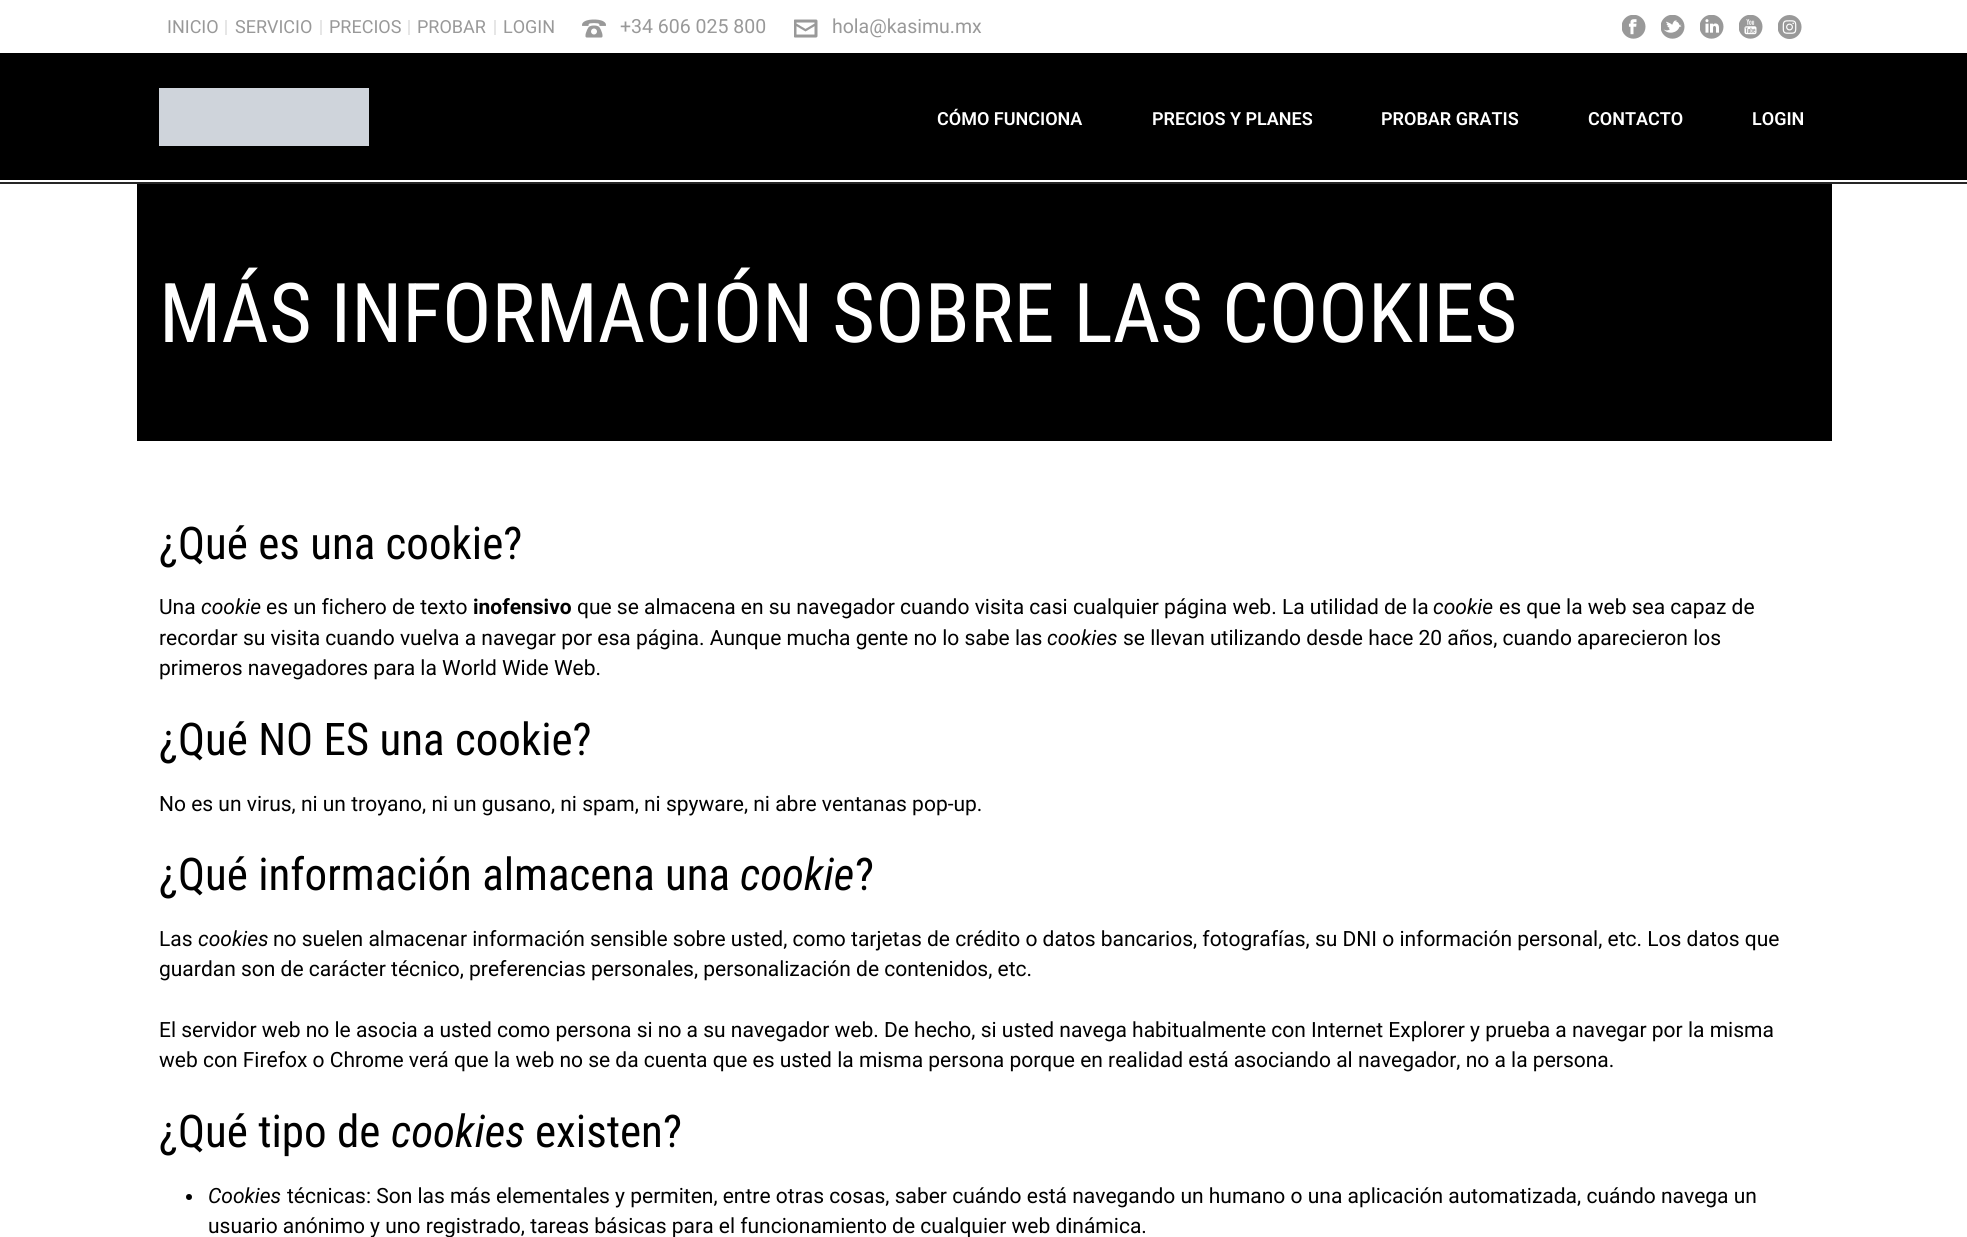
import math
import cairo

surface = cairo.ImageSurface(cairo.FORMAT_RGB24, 1967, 1237)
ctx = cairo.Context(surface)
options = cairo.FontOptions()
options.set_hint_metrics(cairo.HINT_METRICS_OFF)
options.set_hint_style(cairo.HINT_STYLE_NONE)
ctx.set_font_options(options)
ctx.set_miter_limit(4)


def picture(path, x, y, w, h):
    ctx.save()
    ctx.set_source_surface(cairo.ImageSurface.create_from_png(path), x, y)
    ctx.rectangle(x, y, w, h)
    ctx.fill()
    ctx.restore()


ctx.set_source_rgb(1, 1, 1)
ctx.paint()
ctx.set_source_rgb(0.149, 0.149, 0.149)
ctx.rectangle(0, 182, 1967, 2)
ctx.fill()
ctx.set_source_rgb(0.902, 0.902, 0.902)
ctx.rectangle(225, 20, 2, 15)
ctx.fill()
ctx.select_font_face("Roboto")
ctx.set_font_size(18)
ctx.set_source_rgb(0.6, 0.6, 0.6)
ctx.move_to(167, 33)
ctx.show_text("INICIO")
ctx.set_source_rgb(0.902, 0.902, 0.902)
ctx.rectangle(320, 20, 2, 15)
ctx.fill()
ctx.set_source_rgb(0.6, 0.6, 0.6)
ctx.move_to(235, 33)
ctx.show_text("SERVICIO")
ctx.set_source_rgb(0.902, 0.902, 0.902)
ctx.rectangle(408, 20, 2, 15)
ctx.fill()
ctx.set_source_rgb(0.6, 0.6, 0.6)
ctx.move_to(329, 33)
ctx.show_text("PRECIOS")
ctx.set_source_rgb(0.902, 0.902, 0.902)
ctx.rectangle(494, 20, 2, 15)
ctx.fill()
ctx.set_source_rgb(0.6, 0.6, 0.6)
ctx.move_to(417, 33)
ctx.show_text("PROBAR")
ctx.move_to(503, 33)
ctx.show_text("LOGIN")
picture("img1.png", 582, 19, 24, 19)
ctx.set_font_size(19.5)
ctx.move_to(620, 33)
ctx.show_text("+34 606 025 800")
picture("img2.png", 794, 19, 24, 19)
ctx.move_to(832, 33)
ctx.show_text("hola@kasimu.mx")
picture("img3.png", 1622, 15, 24, 24)
picture("img4.png", 1661, 15, 24, 24)
picture("img5.png", 1700, 15, 24, 24)
picture("img6.png", 1739, 15, 24, 24)
picture("img7.png", 1778, 15, 24, 24)
ctx.set_source_rgb(0, 0, 0)
ctx.rectangle(0, 53, 1967, 127)
ctx.fill()
ctx.set_source_rgb(0.812, 0.831, 0.859)
ctx.rectangle(159, 88, 210, 58)
ctx.fill()
ctx.select_font_face("Roboto SemiBold")
ctx.set_font_size(18)
ctx.set_source_rgb(1, 1, 1)
ctx.move_to(937, 125)
ctx.show_text("CÓMO FUNCIONA")
ctx.move_to(1152, 125)
ctx.show_text("PRECIOS Y PLANES")
ctx.move_to(1381, 125)
ctx.show_text("PROBAR GRATIS")
ctx.move_to(1588, 125)
ctx.show_text("CONTACTO")
ctx.move_to(1752, 125)
ctx.show_text("LOGIN")
ctx.set_source_rgb(0, 0, 0)
ctx.rectangle(137, 184, 1695, 257)
ctx.fill()
ctx.select_font_face("Roboto Condensed")
ctx.set_font_size(82.5)
ctx.set_source_rgb(1, 1, 1)
ctx.move_to(159, 342)
ctx.show_text("MÁS INFORMACIÓN SOBRE LAS COOKIES")
ctx.set_font_size(45)
ctx.set_source_rgb(0, 0, 0)
ctx.move_to(159, 559)
ctx.show_text("¿Qué es una cookie?")
ctx.select_font_face("Roboto")
ctx.set_font_size(21)
ctx.move_to(159, 614)
ctx.show_text("Una")
ctx.select_font_face("Roboto", cairo.FONT_SLANT_ITALIC)
ctx.move_to(201, 614)
ctx.show_text("cookie")
ctx.select_font_face("Roboto")
ctx.move_to(266, 614)
ctx.show_text("es un fichero de texto")
ctx.select_font_face("Roboto", cairo.FONT_SLANT_NORMAL, cairo.FONT_WEIGHT_BOLD)
ctx.move_to(473, 614)
ctx.show_text("inofensivo")
ctx.select_font_face("Roboto")
ctx.move_to(577, 614)
ctx.show_text("que se almacena en su navegador cuando visita casi cualquier página web. La utilidad de la")
ctx.select_font_face("Roboto", cairo.FONT_SLANT_ITALIC)
ctx.move_to(1433, 614)
ctx.show_text("cookie")
ctx.select_font_face("Roboto")
ctx.move_to(1499, 614)
ctx.show_text("es que la web sea capaz de")
ctx.move_to(159, 645)
ctx.show_text("recordar su visita cuando vuelva a navegar por esa página. Aunque mucha gente no lo sabe las")
ctx.select_font_face("Roboto", cairo.FONT_SLANT_ITALIC)
ctx.move_to(1047, 645)
ctx.show_text("cookies")
ctx.select_font_face("Roboto")
ctx.move_to(1123, 645)
ctx.show_text("se llevan utilizando desde hace 20 años, cuando aparecieron los")
ctx.move_to(159, 675)
ctx.show_text("primeros navegadores para la World Wide Web.")
ctx.select_font_face("Roboto Condensed")
ctx.set_font_size(45)
ctx.move_to(159, 755)
ctx.show_text("¿Qué NO ES una cookie?")
ctx.select_font_face("Roboto")
ctx.set_font_size(21)
ctx.move_to(159, 811)
ctx.show_text("No es un virus, ni un troyano, ni un gusano, ni spam, ni spyware, ni abre ventanas pop-up.")
ctx.select_font_face("Roboto Condensed")
ctx.set_font_size(45)
ctx.move_to(159, 890)
ctx.show_text("¿Qué información almacena una")
ctx.select_font_face("Roboto Condensed", cairo.FONT_SLANT_ITALIC)
ctx.move_to(740, 890)
ctx.show_text("cookie")
ctx.select_font_face("Roboto Condensed")
ctx.move_to(855, 890)
ctx.show_text("?")
ctx.select_font_face("Roboto")
ctx.set_font_size(21)
ctx.move_to(159, 946)
ctx.show_text("Las")
ctx.select_font_face("Roboto", cairo.FONT_SLANT_ITALIC)
ctx.move_to(198, 946)
ctx.show_text("cookies")
ctx.select_font_face("Roboto")
ctx.move_to(273, 946)
ctx.show_text("no suelen almacenar información sensible sobre usted, como tarjetas de crédito o datos bancarios, fotografías, su DNI o información personal, etc. Los datos que")
ctx.move_to(159, 976)
ctx.show_text("guardan son de carácter técnico, preferencias personales, personalización de contenidos, etc.")
ctx.move_to(159, 1037)
ctx.show_text("El servidor web no le asocia a usted como persona si no a su navegador web. De hecho, si usted navega habitualmente con Internet Explorer y prueba a navegar por la misma")
ctx.move_to(159, 1067)
ctx.show_text("web con Firefox o Chrome verá que la web no se da cuenta que es usted la misma persona porque en realidad está asociando al navegador, no a la persona.")
ctx.select_font_face("Roboto Condensed")
ctx.set_font_size(45)
ctx.move_to(159, 1147)
ctx.show_text("¿Qué tipo de")
ctx.select_font_face("Roboto Condensed", cairo.FONT_SLANT_ITALIC)
ctx.move_to(391, 1147)
ctx.show_text("cookies")
ctx.select_font_face("Roboto Condensed")
ctx.move_to(535, 1147)
ctx.show_text("existen?")
ctx.new_path()
ctx.arc(189, 1197, 3, 0, 2 * math.pi)
ctx.fill()
ctx.select_font_face("Roboto", cairo.FONT_SLANT_ITALIC)
ctx.set_font_size(21)
ctx.move_to(208, 1203)
ctx.show_text("Cookies")
ctx.select_font_face("Roboto")
ctx.move_to(287, 1203)
ctx.show_text("técnicas: Son las más elementales y permiten, entre otras cosas, saber cuándo está navegando un humano o una aplicación automatizada, cuándo navega un")
ctx.move_to(208, 1233)
ctx.show_text("usuario anónimo y uno registrado, tareas básicas para el funcionamiento de cualquier web dinámica.")
surface.write_to_png("page.png")
